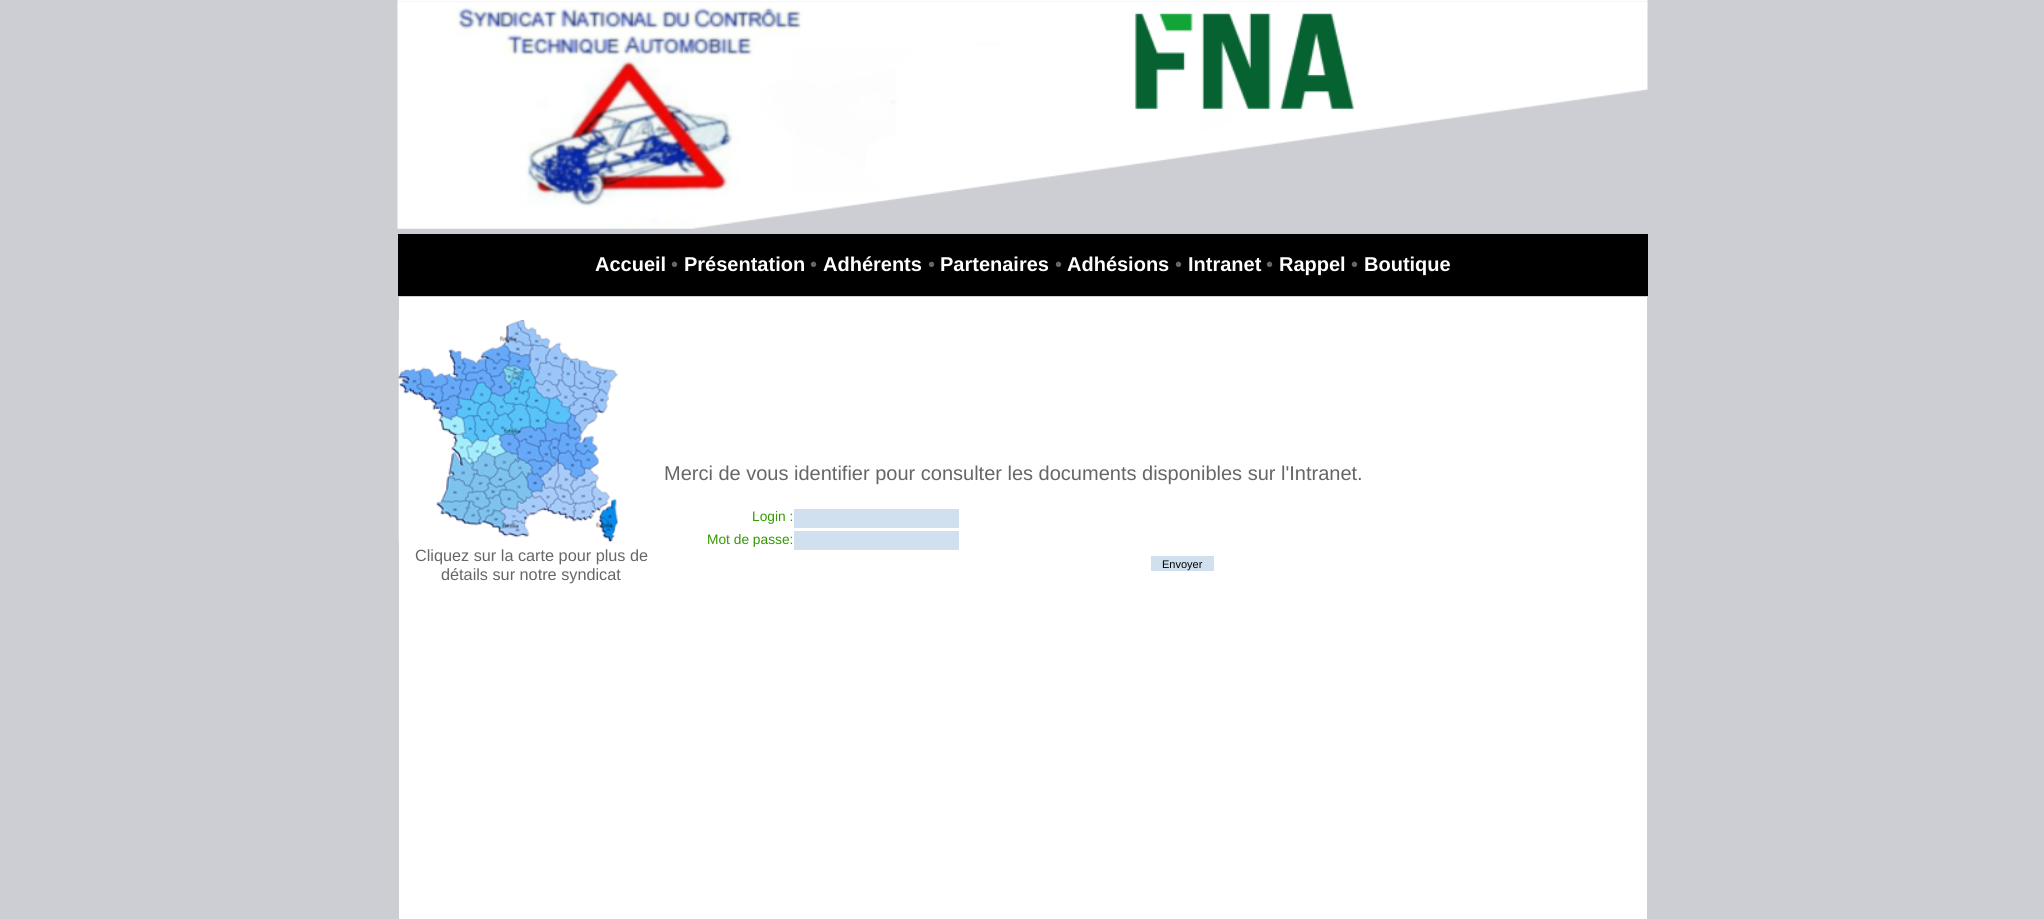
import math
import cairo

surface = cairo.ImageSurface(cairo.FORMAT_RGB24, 2044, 919)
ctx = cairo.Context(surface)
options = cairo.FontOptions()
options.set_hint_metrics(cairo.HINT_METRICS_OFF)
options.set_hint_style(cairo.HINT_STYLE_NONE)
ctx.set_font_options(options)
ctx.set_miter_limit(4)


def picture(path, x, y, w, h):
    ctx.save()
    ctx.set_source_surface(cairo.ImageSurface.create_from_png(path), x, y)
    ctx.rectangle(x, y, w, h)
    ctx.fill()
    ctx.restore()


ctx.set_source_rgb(0.8, 0.808, 0.827)
ctx.paint()
picture("img1.png", 397, 0, 1251, 2)
picture("img2.png", 397, 1, 1251, 228)
ctx.set_source_rgb(0, 0, 0)
ctx.rectangle(398, 234, 1250, 62)
ctx.fill()
ctx.select_font_face("Liberation Sans", cairo.FONT_SLANT_NORMAL, cairo.FONT_WEIGHT_BOLD)
ctx.set_font_size(20)
ctx.set_source_rgb(1, 1, 1)
ctx.move_to(595, 271)
ctx.show_text("Accueil")
ctx.select_font_face("Liberation Sans")
ctx.set_source_rgb(0.4, 0.4, 0.4)
ctx.move_to(671, 271)
ctx.show_text("•")
ctx.select_font_face("Liberation Sans", cairo.FONT_SLANT_NORMAL, cairo.FONT_WEIGHT_BOLD)
ctx.set_source_rgb(1, 1, 1)
ctx.move_to(684, 271)
ctx.show_text("Présentation")
ctx.select_font_face("Liberation Sans")
ctx.set_source_rgb(0.4, 0.4, 0.4)
ctx.move_to(810, 271)
ctx.show_text("•")
ctx.select_font_face("Liberation Sans", cairo.FONT_SLANT_NORMAL, cairo.FONT_WEIGHT_BOLD)
ctx.set_source_rgb(1, 1, 1)
ctx.move_to(823, 271)
ctx.show_text("Adhérents")
ctx.select_font_face("Liberation Sans")
ctx.set_source_rgb(0.4, 0.4, 0.4)
ctx.move_to(928, 271)
ctx.show_text("•")
ctx.select_font_face("Liberation Sans", cairo.FONT_SLANT_NORMAL, cairo.FONT_WEIGHT_BOLD)
ctx.set_source_rgb(1, 1, 1)
ctx.move_to(940, 271)
ctx.show_text("Partenaires")
ctx.select_font_face("Liberation Sans")
ctx.set_source_rgb(0.4, 0.4, 0.4)
ctx.move_to(1055, 271)
ctx.show_text("•")
ctx.select_font_face("Liberation Sans", cairo.FONT_SLANT_NORMAL, cairo.FONT_WEIGHT_BOLD)
ctx.set_source_rgb(1, 1, 1)
ctx.move_to(1067, 271)
ctx.show_text("Adhésions")
ctx.select_font_face("Liberation Sans")
ctx.set_source_rgb(0.4, 0.4, 0.4)
ctx.move_to(1175, 271)
ctx.show_text("•")
ctx.select_font_face("Liberation Sans", cairo.FONT_SLANT_NORMAL, cairo.FONT_WEIGHT_BOLD)
ctx.set_source_rgb(1, 1, 1)
ctx.move_to(1188, 271)
ctx.show_text("Intranet")
ctx.select_font_face("Liberation Sans")
ctx.set_source_rgb(0.4, 0.4, 0.4)
ctx.move_to(1266, 271)
ctx.show_text("•")
ctx.select_font_face("Liberation Sans", cairo.FONT_SLANT_NORMAL, cairo.FONT_WEIGHT_BOLD)
ctx.set_source_rgb(1, 1, 1)
ctx.move_to(1279, 271)
ctx.show_text("Rappel")
ctx.select_font_face("Liberation Sans")
ctx.set_source_rgb(0.4, 0.4, 0.4)
ctx.move_to(1351, 271)
ctx.show_text("•")
ctx.select_font_face("Liberation Sans", cairo.FONT_SLANT_NORMAL, cairo.FONT_WEIGHT_BOLD)
ctx.set_source_rgb(1, 1, 1)
ctx.move_to(1364, 271)
ctx.show_text("Boutique")
ctx.rectangle(398.5, 296.5, 1249, 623)
ctx.fill_preserve()
ctx.set_source_rgb(0.808, 0.808, 0.808)
ctx.set_line_width(1)
ctx.stroke()
picture("img3.png", 398, 320, 220, 222)
ctx.select_font_face("Liberation Sans")
ctx.set_font_size(16.25)
ctx.set_source_rgb(0.4, 0.4, 0.4)
ctx.move_to(415, 561)
ctx.show_text("Cliquez sur la carte pour plus de")
ctx.move_to(441, 580)
ctx.show_text("détails sur notre syndicat")
ctx.set_font_size(20)
ctx.move_to(664, 480)
ctx.show_text("Merci de vous identifier pour consulter les documents disponibles sur l'Intranet.")
ctx.set_font_size(13.75)
ctx.set_source_rgb(0.2, 0.6, 0)
ctx.move_to(752, 521)
ctx.show_text("Login :")
ctx.set_source_rgb(0.82, 0.878, 0.937)
ctx.rectangle(794, 509, 165, 19)
ctx.fill()
ctx.set_source_rgb(0.2, 0.6, 0)
ctx.move_to(707, 544)
ctx.show_text("Mot de passe:")
ctx.set_source_rgb(0.82, 0.878, 0.937)
ctx.rectangle(794, 531, 165, 19)
ctx.fill()
ctx.rectangle(1151, 556, 63, 15)
ctx.fill()
ctx.set_font_size(11)
ctx.set_source_rgb(0, 0, 0)
ctx.move_to(1162, 568)
ctx.show_text("Envoyer")
surface.write_to_png("page.png")
